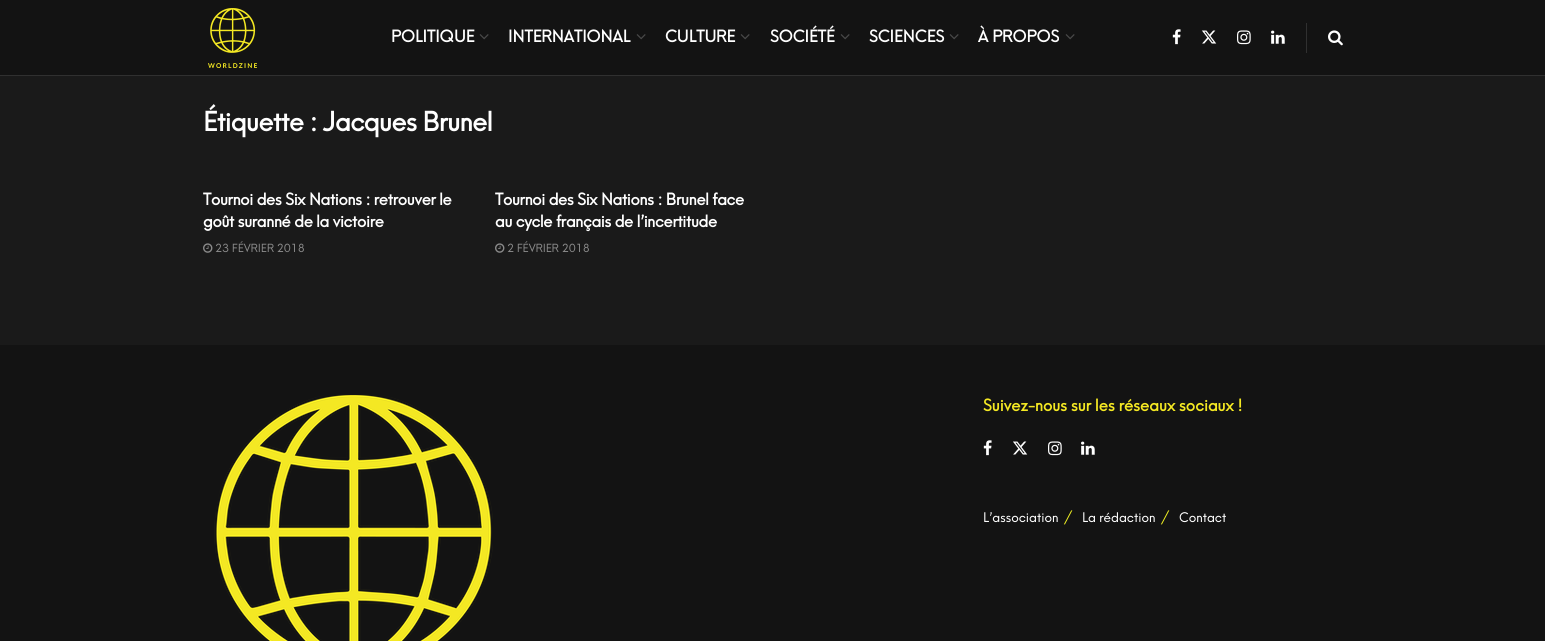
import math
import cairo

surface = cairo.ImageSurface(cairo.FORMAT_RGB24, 1545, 641)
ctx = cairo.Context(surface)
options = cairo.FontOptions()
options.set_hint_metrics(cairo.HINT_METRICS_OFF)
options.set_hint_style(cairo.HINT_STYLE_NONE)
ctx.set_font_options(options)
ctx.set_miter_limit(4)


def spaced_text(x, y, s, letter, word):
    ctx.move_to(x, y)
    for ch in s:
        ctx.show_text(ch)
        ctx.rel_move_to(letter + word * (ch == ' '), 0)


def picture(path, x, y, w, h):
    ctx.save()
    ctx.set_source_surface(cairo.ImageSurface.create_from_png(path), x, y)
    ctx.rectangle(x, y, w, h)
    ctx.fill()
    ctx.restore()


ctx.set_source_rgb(0.102, 0.102, 0.102)
ctx.paint()
ctx.set_source_rgb(0.075, 0.075, 0.075)
ctx.rectangle(0, 0, 1545, 75)
ctx.fill()
ctx.set_source_rgb(0.188, 0.188, 0.188)
ctx.rectangle(0, 75, 1545, 1)
ctx.fill()
picture("img1.png", 208, 8, 49, 60)
ctx.select_font_face("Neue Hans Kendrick", cairo.FONT_SLANT_NORMAL, cairo.FONT_WEIGHT_BOLD)
ctx.set_font_size(16)
ctx.set_source_rgb(1, 1, 1)
ctx.move_to(391, 42)
ctx.show_text("POLITIQUE")
picture("img2.png", 479, 34, 10, 6)
ctx.move_to(508, 42)
ctx.show_text("INTERNATIONAL")
picture("img2.png", 636, 34, 10, 6)
ctx.move_to(665, 42)
ctx.show_text("CULTURE")
picture("img2.png", 740, 34, 10, 6)
ctx.move_to(770, 42)
ctx.show_text("SOCIÉTÉ")
picture("img2.png", 840, 34, 10, 6)
ctx.move_to(869, 42)
ctx.show_text("SCIENCES")
picture("img2.png", 949, 34, 10, 6)
ctx.move_to(978, 42)
ctx.show_text("À PROPOS")
picture("img2.png", 1065, 34, 10, 6)
picture("img3.png", 1172, 29, 9, 16)
picture("img4.png", 1202, 30, 15, 14)
picture("img5.png", 1237, 30, 14, 15)
picture("img6.png", 1271, 30, 14, 14)
ctx.set_source_rgb(0.188, 0.188, 0.188)
ctx.rectangle(1306, 23, 1, 30)
ctx.fill()
picture("img7.png", 1328, 30, 15, 16)
ctx.set_font_size(26)
ctx.set_source_rgb(1, 1, 1)
spaced_text(203, 131, "Étiquette : Jacques Brunel", -0.5, 0)
ctx.set_font_size(16)
spaced_text(203, 205, "Tournoi des Six Nations : retrouver le", -0.3, 0)
spaced_text(203, 227, "goût suranné de la victoire", -0.3, 0)
picture("img8.png", 203, 243, 10, 10)
ctx.select_font_face("Neue Hans Kendrick")
ctx.set_font_size(11)
ctx.set_source_rgb(0.545, 0.545, 0.545)
ctx.move_to(215, 252)
ctx.show_text("23 FÉVRIER 2018")
ctx.select_font_face("Neue Hans Kendrick", cairo.FONT_SLANT_NORMAL, cairo.FONT_WEIGHT_BOLD)
ctx.set_font_size(16)
ctx.set_source_rgb(1, 1, 1)
spaced_text(495, 205, "Tournoi des Six Nations : Brunel face", -0.3, 0)
spaced_text(495, 227, "au cycle français de l’incertitude", -0.3, 0)
picture("img8.png", 495, 243, 10, 10)
ctx.select_font_face("Neue Hans Kendrick")
ctx.set_font_size(11)
ctx.set_source_rgb(0.545, 0.545, 0.545)
ctx.move_to(507, 252)
ctx.show_text("2 FÉVRIER 2018")
ctx.set_source_rgb(0.075, 0.075, 0.075)
ctx.rectangle(0, 345, 1545, 296)
ctx.fill()
picture("img9.png", 214, 395, 279, 246)
ctx.select_font_face("Neue Hans Kendrick", cairo.FONT_SLANT_NORMAL, cairo.FONT_WEIGHT_BOLD)
ctx.set_font_size(16)
ctx.set_source_rgb(0.957, 0.91, 0.137)
ctx.move_to(983, 411)
ctx.show_text("Suivez-nous sur les réseaux sociaux !")
picture("img3.png", 983, 440, 9, 16)
picture("img4.png", 1013, 441, 15, 14)
picture("img5.png", 1048, 441, 14, 15)
picture("img6.png", 1081, 441, 14, 14)
ctx.select_font_face("Neue Hans Kendrick")
ctx.set_font_size(13)
ctx.set_source_rgb(1, 1, 1)
ctx.move_to(983, 522)
ctx.show_text("L’association")
ctx.set_font_size(14)
ctx.set_source_rgb(0.933, 0.933, 0.133)
ctx.move_to(1064, 522)
ctx.show_text("/")
ctx.set_font_size(13)
ctx.set_source_rgb(1, 1, 1)
ctx.move_to(1082, 522)
ctx.show_text("La rédaction")
ctx.set_font_size(14)
ctx.set_source_rgb(0.933, 0.933, 0.133)
ctx.move_to(1161, 522)
ctx.show_text("/")
ctx.set_font_size(13)
ctx.set_source_rgb(1, 1, 1)
ctx.move_to(1179, 522)
ctx.show_text("Contact")
surface.write_to_png("page.png")
